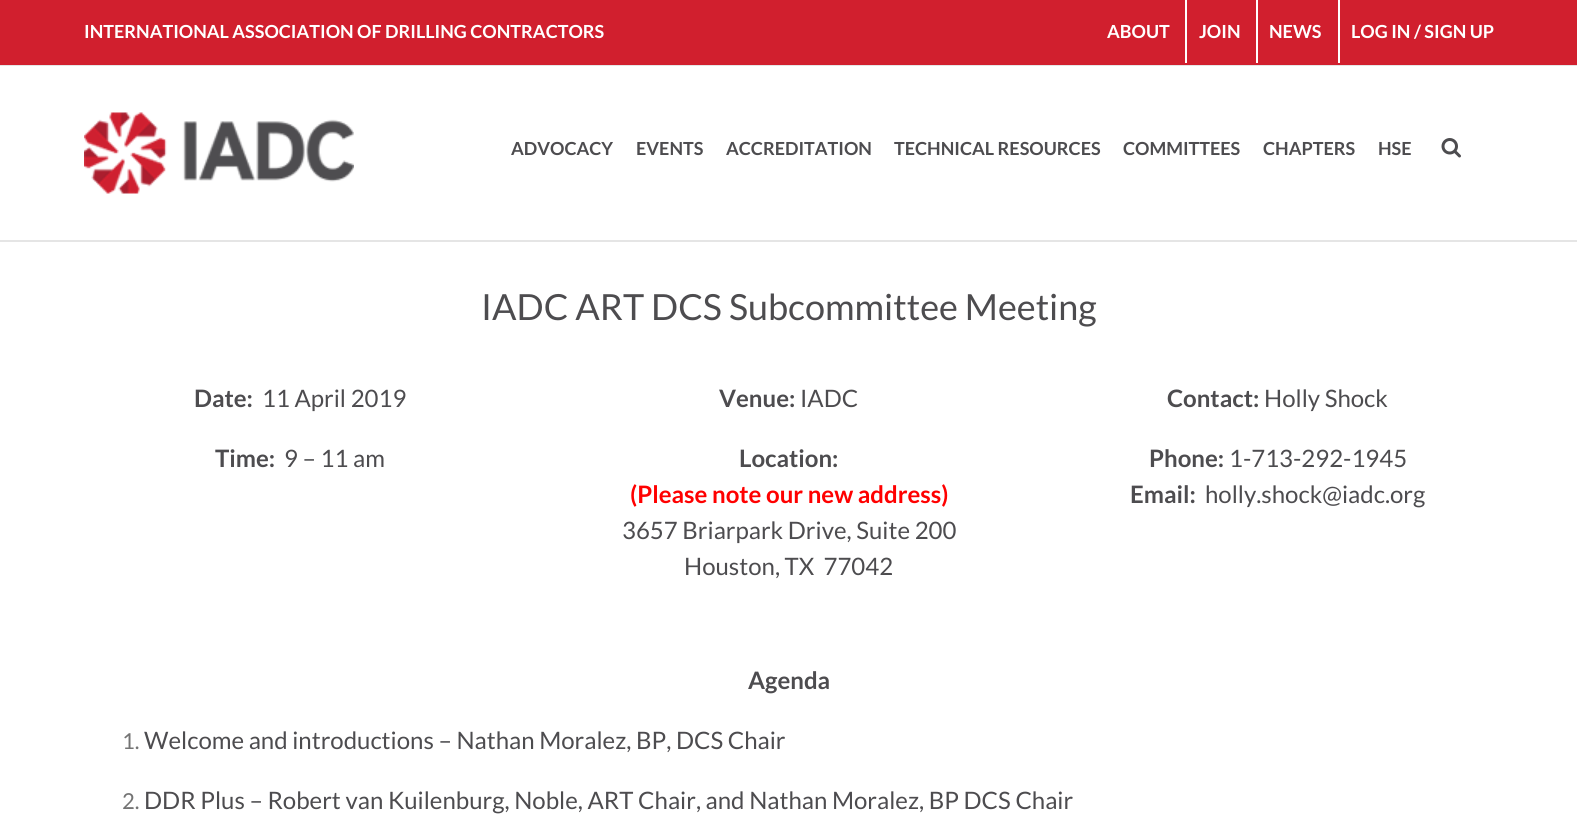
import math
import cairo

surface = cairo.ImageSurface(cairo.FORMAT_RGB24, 1577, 837)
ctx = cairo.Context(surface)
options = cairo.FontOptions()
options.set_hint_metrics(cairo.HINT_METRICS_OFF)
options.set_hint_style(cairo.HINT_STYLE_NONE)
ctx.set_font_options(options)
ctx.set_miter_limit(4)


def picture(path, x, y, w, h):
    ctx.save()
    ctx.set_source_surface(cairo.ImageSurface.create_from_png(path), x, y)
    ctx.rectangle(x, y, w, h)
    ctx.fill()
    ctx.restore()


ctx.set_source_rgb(1, 1, 1)
ctx.paint()
ctx.set_source_rgb(0.82, 0.122, 0.18)
ctx.rectangle(0, 0, 1577, 65)
ctx.fill()
ctx.set_source_rgb(0.898, 0.898, 0.898)
ctx.rectangle(0, 65, 1577, 1)
ctx.fill()
ctx.select_font_face("Lato", cairo.FONT_SLANT_NORMAL, cairo.FONT_WEIGHT_BOLD)
ctx.set_font_size(18)
ctx.set_source_rgb(1, 1, 1)
ctx.move_to(84, 38)
ctx.show_text("INTERNATIONAL ASSOCIATION OF DRILLING CONTRACTORS")
ctx.move_to(1107, 38)
ctx.show_text("ABOUT")
ctx.rectangle(1185, 0, 2, 63)
ctx.fill()
ctx.move_to(1199, 38)
ctx.show_text("JOIN")
ctx.rectangle(1256, 0, 2, 63)
ctx.fill()
ctx.move_to(1269, 38)
ctx.show_text("NEWS")
ctx.rectangle(1338, 0, 2, 63)
ctx.fill()
ctx.move_to(1351, 38)
ctx.show_text("LOG IN / SIGN UP")
ctx.set_source_rgb(0.898, 0.898, 0.898)
ctx.rectangle(0, 240, 1577, 2)
ctx.fill()
picture("img1.png", 84, 112, 270, 82)
ctx.set_source_rgb(0.302, 0.298, 0.31)
ctx.move_to(511, 155)
ctx.show_text("ADVOCACY")
ctx.move_to(636, 155)
ctx.show_text("EVENTS")
ctx.move_to(726, 155)
ctx.show_text("ACCREDITATION")
ctx.move_to(894, 155)
ctx.show_text("TECHNICAL RESOURCES")
ctx.move_to(1123, 155)
ctx.show_text("COMMITTEES")
ctx.move_to(1263, 155)
ctx.show_text("CHAPTERS")
ctx.move_to(1378, 155)
ctx.show_text("HSE")
picture("img2.png", 1441, 138, 20, 20)
ctx.select_font_face("Lato")
ctx.set_font_size(36)
ctx.move_to(481, 320)
ctx.show_text("IADC ART DCS Subcommittee Meeting")
ctx.select_font_face("Lato", cairo.FONT_SLANT_NORMAL, cairo.FONT_WEIGHT_BOLD)
ctx.set_font_size(24)
ctx.move_to(194, 407)
ctx.show_text("Date:")
ctx.select_font_face("Lato")
ctx.move_to(262, 407)
ctx.show_text("11 April 2019")
ctx.select_font_face("Lato", cairo.FONT_SLANT_NORMAL, cairo.FONT_WEIGHT_BOLD)
ctx.move_to(215, 467)
ctx.show_text("Time:")
ctx.select_font_face("Lato")
ctx.move_to(284, 467)
ctx.show_text("9 – 11 am")
ctx.select_font_face("Lato", cairo.FONT_SLANT_NORMAL, cairo.FONT_WEIGHT_BOLD)
ctx.move_to(719, 407)
ctx.show_text("Venue:")
ctx.select_font_face("Lato")
ctx.move_to(800, 407)
ctx.show_text("IADC")
ctx.select_font_face("Lato", cairo.FONT_SLANT_NORMAL, cairo.FONT_WEIGHT_BOLD)
ctx.move_to(739, 467)
ctx.show_text("Location:")
ctx.set_source_rgb(1, 0, 0)
ctx.move_to(630, 503)
ctx.show_text("(Please note our new address)")
ctx.select_font_face("Lato")
ctx.set_source_rgb(0.302, 0.298, 0.31)
ctx.move_to(622, 539)
ctx.show_text("3657 Briarpark Drive, Suite 200")
ctx.move_to(684, 575)
ctx.show_text("Houston, TX  77042")
ctx.select_font_face("Lato", cairo.FONT_SLANT_NORMAL, cairo.FONT_WEIGHT_BOLD)
ctx.move_to(1167, 407)
ctx.show_text("Contact:")
ctx.select_font_face("Lato")
ctx.move_to(1264, 407)
ctx.show_text("Holly Shock")
ctx.select_font_face("Lato", cairo.FONT_SLANT_NORMAL, cairo.FONT_WEIGHT_BOLD)
ctx.move_to(1149, 467)
ctx.show_text("Phone:")
ctx.select_font_face("Lato")
ctx.move_to(1229, 467)
ctx.show_text("1-713-292-1945")
ctx.select_font_face("Lato", cairo.FONT_SLANT_NORMAL, cairo.FONT_WEIGHT_BOLD)
ctx.move_to(1130, 503)
ctx.show_text("Email:")
ctx.select_font_face("Lato")
ctx.move_to(1205, 503)
ctx.show_text("holly.shock@iadc.org")
ctx.select_font_face("Lato", cairo.FONT_SLANT_NORMAL, cairo.FONT_WEIGHT_BOLD)
ctx.move_to(748, 689)
ctx.show_text("Agenda")
ctx.select_font_face("Lato")
ctx.set_font_size(22)
ctx.set_source_rgb(0.455, 0.455, 0.455)
ctx.move_to(122, 749)
ctx.show_text("1.")
ctx.set_font_size(24)
ctx.set_source_rgb(0.302, 0.298, 0.31)
ctx.move_to(144, 749)
ctx.show_text("Welcome and introductions – Nathan Moralez, BP, DCS Chair")
ctx.set_font_size(22)
ctx.set_source_rgb(0.455, 0.455, 0.455)
ctx.move_to(122, 809)
ctx.show_text("2.")
ctx.set_font_size(24)
ctx.set_source_rgb(0.302, 0.298, 0.31)
ctx.move_to(144, 809)
ctx.show_text("DDR Plus – Robert van Kuilenburg, Noble, ART Chair, and Nathan Moralez, BP DCS Chair")
surface.write_to_png("page.png")
